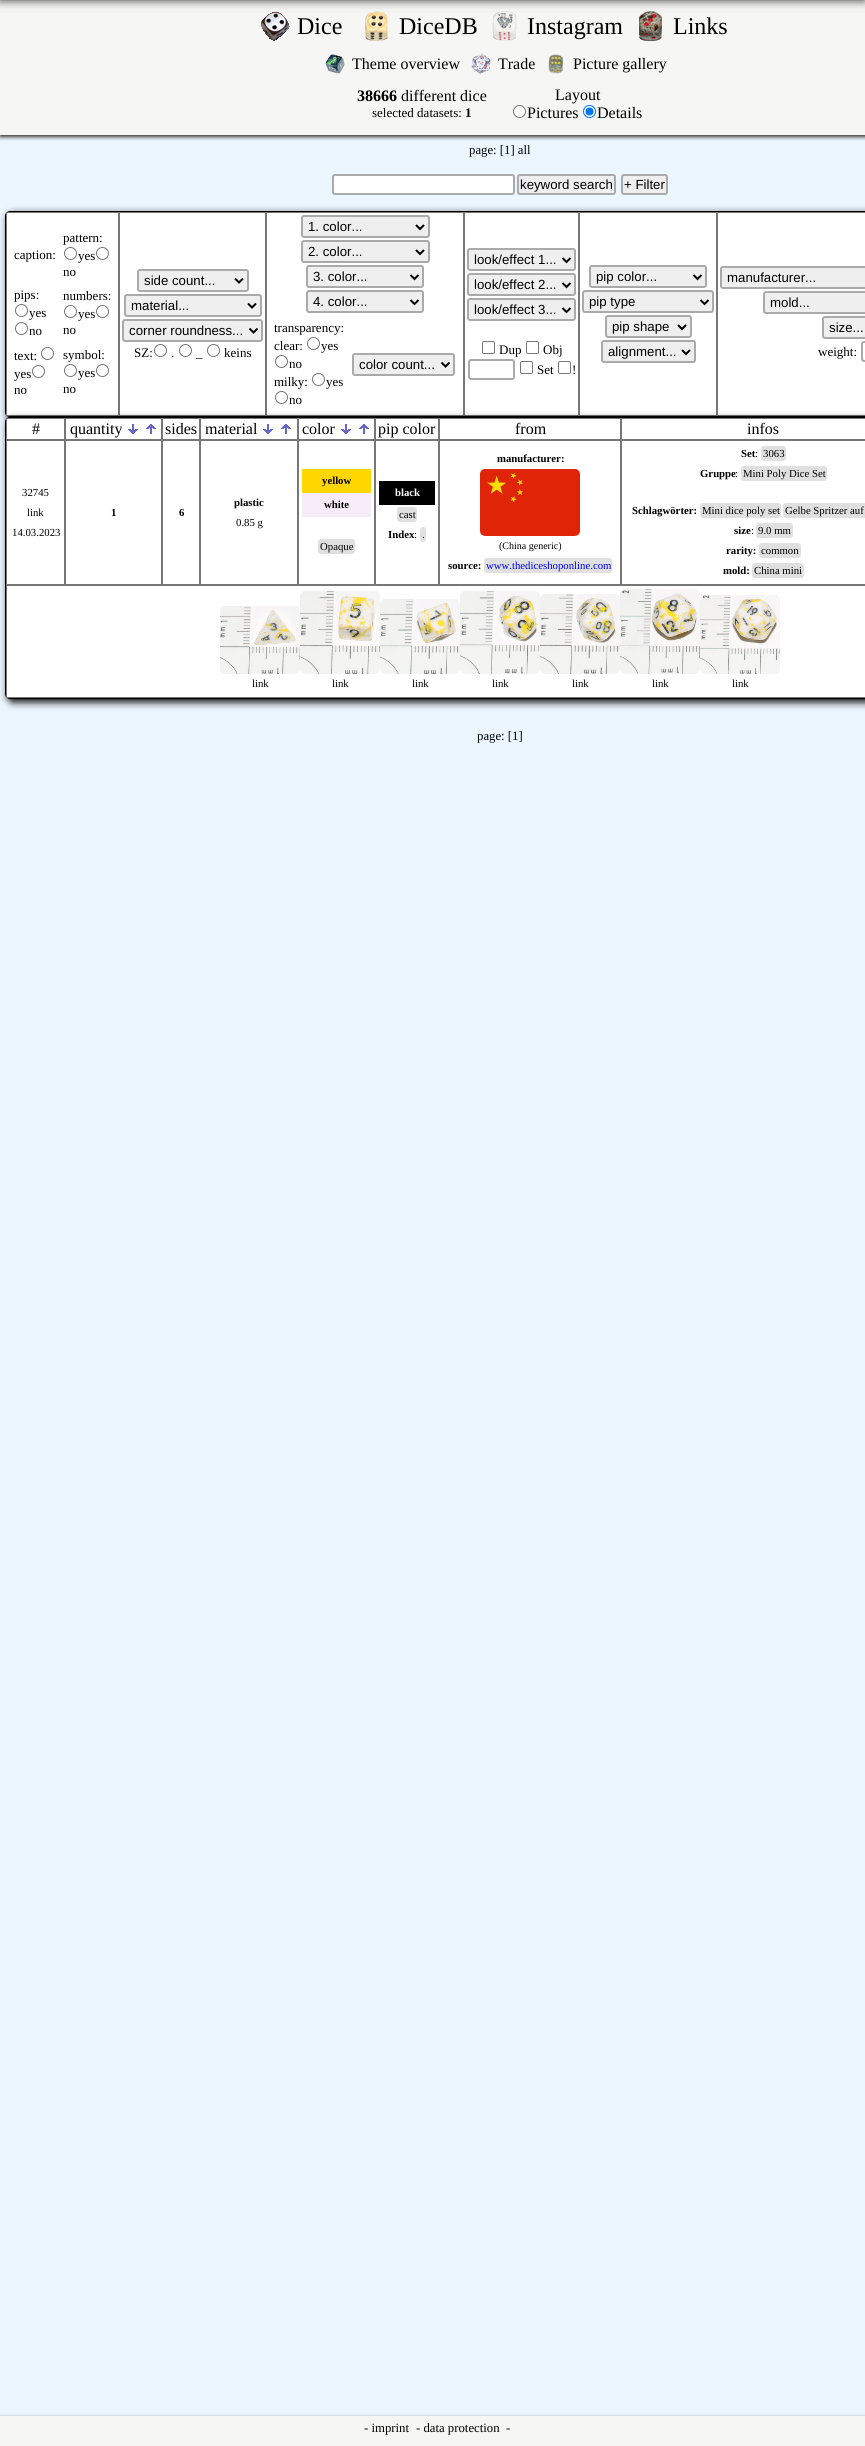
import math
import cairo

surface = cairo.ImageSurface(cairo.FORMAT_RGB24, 865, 2446)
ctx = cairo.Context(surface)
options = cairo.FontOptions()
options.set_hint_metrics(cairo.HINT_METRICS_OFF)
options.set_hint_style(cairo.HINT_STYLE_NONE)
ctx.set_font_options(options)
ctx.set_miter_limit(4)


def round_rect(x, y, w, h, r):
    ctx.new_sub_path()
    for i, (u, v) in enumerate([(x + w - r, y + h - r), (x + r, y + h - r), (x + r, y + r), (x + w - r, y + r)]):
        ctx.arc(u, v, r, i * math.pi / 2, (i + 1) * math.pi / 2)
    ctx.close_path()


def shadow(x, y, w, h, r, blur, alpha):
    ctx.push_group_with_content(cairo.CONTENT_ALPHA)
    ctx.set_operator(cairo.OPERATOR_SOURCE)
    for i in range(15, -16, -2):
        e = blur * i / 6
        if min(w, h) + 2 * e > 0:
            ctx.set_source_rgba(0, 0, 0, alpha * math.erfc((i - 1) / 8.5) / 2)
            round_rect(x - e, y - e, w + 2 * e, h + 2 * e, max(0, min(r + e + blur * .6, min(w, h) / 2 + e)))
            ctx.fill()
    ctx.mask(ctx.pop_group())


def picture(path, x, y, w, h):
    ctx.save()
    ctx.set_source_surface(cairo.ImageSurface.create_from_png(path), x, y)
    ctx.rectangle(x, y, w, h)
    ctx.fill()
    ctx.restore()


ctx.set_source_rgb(0.922, 0.961, 1)
ctx.paint()
ctx.set_source_rgb(0.2, 0.2, 0.2)
shadow(0, 2, 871, 135, 0, 2, 1)
ctx.set_source_rgb(0.961, 0.961, 0.957)
ctx.rectangle(0, 0, 865, 135)
ctx.fill()
picture("img1.png", 261, 12, 29, 29)
picture("img2.png", 365, 11, 23, 30)
picture("img3.png", 492, 11, 25, 30)
picture("img4.png", 639, 11, 23, 30)
ctx.set_source_rgb(0, 0, 0)
shadow(0, -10, 865, 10, 0, 5, 0.8)
ctx.select_font_face("Liberation Serif")
ctx.set_font_size(24)
ctx.set_source_rgb(0, 0, 0)
ctx.move_to(297, 34)
ctx.show_text("Dice")
ctx.move_to(399, 34)
ctx.show_text("DiceDB")
ctx.move_to(527, 34)
ctx.show_text("Instagram")
ctx.move_to(673, 34)
ctx.show_text("Links")
picture("img5.png", 325, 54, 20, 20)
ctx.set_font_size(16)
ctx.move_to(352, 69)
ctx.show_text("Theme overview")
picture("img6.png", 471, 53, 20, 21)
ctx.move_to(498, 69)
ctx.show_text("Trade")
picture("img7.png", 548, 54, 16, 20)
ctx.move_to(573, 69)
ctx.show_text("Picture gallery")
ctx.select_font_face("Liberation Serif", cairo.FONT_SLANT_NORMAL, cairo.FONT_WEIGHT_BOLD)
ctx.move_to(357, 101)
ctx.show_text("38666")
ctx.select_font_face("Liberation Serif")
ctx.move_to(401, 101)
ctx.show_text("different dice")
ctx.set_font_size(13)
ctx.move_to(372, 117)
ctx.show_text("selected datasets:")
ctx.select_font_face("Liberation Serif", cairo.FONT_SLANT_NORMAL, cairo.FONT_WEIGHT_BOLD)
ctx.move_to(465, 117)
ctx.show_text("1")
ctx.select_font_face("Liberation Serif")
ctx.set_font_size(16)
ctx.move_to(555, 100)
ctx.show_text("Layout")
ctx.set_source_rgb(1, 1, 1)
ctx.new_path()
ctx.arc(519.5, 111.5, 6, 0, 2 * math.pi)
ctx.fill_preserve()
ctx.set_source_rgb(0.463, 0.463, 0.463)
ctx.set_line_width(1)
ctx.stroke()
ctx.set_source_rgb(0, 0, 0)
ctx.move_to(527, 118)
ctx.show_text("Pictures")
ctx.set_source_rgb(1, 1, 1)
ctx.new_path()
ctx.arc(589.5, 111.5, 6, 0, 2 * math.pi)
ctx.fill_preserve()
ctx.set_source_rgb(0, 0.459, 1)
ctx.stroke()
ctx.arc(589.5, 111.5, 4, 0, 2 * math.pi)
ctx.fill()
ctx.set_source_rgb(0, 0, 0)
ctx.move_to(597, 118)
ctx.show_text("Details")
ctx.set_font_size(12.75)
ctx.move_to(469, 154)
ctx.show_text("page: [1] all")
ctx.set_source_rgb(1, 1, 1)
round_rect(333, 175, 181, 19, 2)
ctx.fill_preserve()
ctx.set_source_rgb(0.667, 0.667, 0.667)
ctx.set_line_width(2)
ctx.stroke()
ctx.set_source_rgb(0.937, 0.937, 0.937)
round_rect(518, 175, 97, 19, 2)
ctx.fill_preserve()
ctx.set_source_rgb(0.667, 0.667, 0.667)
ctx.stroke()
ctx.select_font_face("Liberation Sans")
ctx.set_font_size(13.25)
ctx.set_source_rgb(0, 0, 0)
ctx.move_to(520, 189)
ctx.show_text("keyword search")
ctx.set_source_rgb(0.937, 0.937, 0.937)
round_rect(622, 175, 45, 19, 2)
ctx.fill_preserve()
ctx.set_source_rgb(0.667, 0.667, 0.667)
ctx.stroke()
ctx.set_source_rgb(0, 0, 0)
ctx.move_to(624, 189)
ctx.show_text("+ Filter")
ctx.set_source_rgb(0, 0, 0)
shadow(8, 214, 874, 206, 5, 4, 1)
round_rect(5.5, 211.5, 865, 205, 4.5)
ctx.set_source_rgb(0, 0, 0)
ctx.set_line_width(1)
ctx.stroke()
ctx.set_source_rgb(1, 1, 1)
ctx.rectangle(6.5, 212.5, 112, 203)
ctx.fill_preserve()
ctx.set_source_rgb(0.467, 0.467, 0.467)
ctx.stroke()
ctx.select_font_face("Liberation Serif")
ctx.set_font_size(13)
ctx.set_source_rgb(0, 0, 0)
ctx.move_to(14, 259)
ctx.show_text("caption:")
ctx.move_to(63, 242)
ctx.show_text("pattern:")
ctx.new_path()
ctx.arc(70.5, 253.5, 6, 0, 2 * math.pi)
ctx.set_source_rgb(0.463, 0.463, 0.463)
ctx.stroke()
ctx.set_source_rgb(0, 0, 0)
ctx.move_to(78, 260)
ctx.show_text("yes")
ctx.new_path()
ctx.arc(102.5, 253.5, 6, 0, 2 * math.pi)
ctx.set_source_rgb(0.463, 0.463, 0.463)
ctx.stroke()
ctx.set_source_rgb(0, 0, 0)
ctx.move_to(63, 276)
ctx.show_text("no")
ctx.move_to(14, 299)
ctx.show_text("pips:")
ctx.new_path()
ctx.arc(21.5, 310.5, 6, 0, 2 * math.pi)
ctx.set_source_rgb(0.463, 0.463, 0.463)
ctx.stroke()
ctx.set_source_rgb(0, 0, 0)
ctx.move_to(29, 317)
ctx.show_text("yes")
ctx.new_path()
ctx.arc(21.5, 328.5, 6, 0, 2 * math.pi)
ctx.set_source_rgb(0.463, 0.463, 0.463)
ctx.stroke()
ctx.set_source_rgb(0, 0, 0)
ctx.move_to(29, 335)
ctx.show_text("no")
ctx.move_to(63, 300)
ctx.show_text("numbers:")
ctx.new_path()
ctx.arc(70.5, 311.5, 6, 0, 2 * math.pi)
ctx.set_source_rgb(0.463, 0.463, 0.463)
ctx.stroke()
ctx.set_source_rgb(0, 0, 0)
ctx.move_to(78, 318)
ctx.show_text("yes")
ctx.new_path()
ctx.arc(102.5, 311.5, 6, 0, 2 * math.pi)
ctx.set_source_rgb(0.463, 0.463, 0.463)
ctx.stroke()
ctx.set_source_rgb(0, 0, 0)
ctx.move_to(63, 334)
ctx.show_text("no")
ctx.move_to(14, 360)
ctx.show_text("text:")
ctx.new_path()
ctx.arc(47.5, 353.5, 6, 0, 2 * math.pi)
ctx.set_source_rgb(0.463, 0.463, 0.463)
ctx.stroke()
ctx.set_source_rgb(0, 0, 0)
ctx.move_to(14, 378)
ctx.show_text("yes")
ctx.new_path()
ctx.arc(38.5, 371.5, 6, 0, 2 * math.pi)
ctx.set_source_rgb(0.463, 0.463, 0.463)
ctx.stroke()
ctx.set_source_rgb(0, 0, 0)
ctx.move_to(14, 394)
ctx.show_text("no")
ctx.move_to(63, 359)
ctx.show_text("symbol:")
ctx.new_path()
ctx.arc(70.5, 370.5, 6, 0, 2 * math.pi)
ctx.set_source_rgb(0.463, 0.463, 0.463)
ctx.stroke()
ctx.set_source_rgb(0, 0, 0)
ctx.move_to(78, 377)
ctx.show_text("yes")
ctx.new_path()
ctx.arc(102.5, 370.5, 6, 0, 2 * math.pi)
ctx.set_source_rgb(0.463, 0.463, 0.463)
ctx.stroke()
ctx.set_source_rgb(0, 0, 0)
ctx.move_to(63, 393)
ctx.show_text("no")
ctx.set_source_rgb(1, 1, 1)
ctx.rectangle(119.5, 212.5, 146, 203)
ctx.fill_preserve()
ctx.set_source_rgb(0.467, 0.467, 0.467)
ctx.stroke()
ctx.set_source_rgb(0.937, 0.937, 0.937)
round_rect(138, 270, 110, 21, 2)
ctx.fill_preserve()
ctx.set_source_rgb(0.667, 0.667, 0.667)
ctx.set_line_width(2)
ctx.stroke()
ctx.new_path()
ctx.move_to(235, 278.5)
ctx.line_to(239, 282.5)
ctx.line_to(243, 278.5)
ctx.set_source_rgb(0, 0, 0)
ctx.stroke()
ctx.select_font_face("Liberation Sans")
ctx.set_font_size(13.25)
ctx.move_to(144, 285)
ctx.show_text("side count...")
ctx.set_source_rgb(0.937, 0.937, 0.937)
round_rect(125, 295, 136, 21, 2)
ctx.fill_preserve()
ctx.set_source_rgb(0.667, 0.667, 0.667)
ctx.stroke()
ctx.new_path()
ctx.move_to(248, 303.5)
ctx.line_to(252, 307.5)
ctx.line_to(256, 303.5)
ctx.set_source_rgb(0, 0, 0)
ctx.stroke()
ctx.move_to(131, 310)
ctx.show_text("material...")
ctx.set_source_rgb(0.937, 0.937, 0.937)
round_rect(123, 320, 139, 21, 2)
ctx.fill_preserve()
ctx.set_source_rgb(0.667, 0.667, 0.667)
ctx.stroke()
ctx.new_path()
ctx.move_to(249.5, 328.5)
ctx.line_to(253.5, 332.5)
ctx.line_to(257.5, 328.5)
ctx.set_source_rgb(0, 0, 0)
ctx.stroke()
ctx.move_to(129, 335)
ctx.show_text("corner roundness...")
ctx.select_font_face("Liberation Serif")
ctx.set_font_size(13)
ctx.move_to(134, 357)
ctx.show_text("SZ:")
ctx.new_path()
ctx.arc(160.5, 350.5, 6, 0, 2 * math.pi)
ctx.set_source_rgb(0.463, 0.463, 0.463)
ctx.set_line_width(1)
ctx.stroke()
ctx.set_source_rgb(0, 0, 0)
ctx.move_to(171, 357)
ctx.show_text(".")
ctx.new_path()
ctx.arc(185.5, 350.5, 6, 0, 2 * math.pi)
ctx.set_source_rgb(0.463, 0.463, 0.463)
ctx.stroke()
ctx.arc(213.5, 350.5, 6, 0, 2 * math.pi)
ctx.stroke()
ctx.set_source_rgb(0, 0, 0)
ctx.move_to(224, 357)
ctx.show_text("keins")
ctx.move_to(196, 357)
ctx.show_text("_")
ctx.set_source_rgb(1, 1, 1)
ctx.rectangle(266.5, 212.5, 197, 203)
ctx.fill_preserve()
ctx.set_source_rgb(0.467, 0.467, 0.467)
ctx.stroke()
ctx.set_source_rgb(0.937, 0.937, 0.937)
round_rect(302, 216, 127, 21, 2)
ctx.fill_preserve()
ctx.set_source_rgb(0.667, 0.667, 0.667)
ctx.set_line_width(2)
ctx.stroke()
ctx.new_path()
ctx.move_to(416, 225)
ctx.line_to(420, 229)
ctx.line_to(424, 225)
ctx.set_source_rgb(0, 0, 0)
ctx.stroke()
ctx.select_font_face("Liberation Sans")
ctx.set_font_size(13.25)
ctx.move_to(308, 231)
ctx.show_text("1. color...")
ctx.set_source_rgb(0.937, 0.937, 0.937)
round_rect(302, 241, 127, 21, 2)
ctx.fill_preserve()
ctx.set_source_rgb(0.667, 0.667, 0.667)
ctx.stroke()
ctx.new_path()
ctx.move_to(416, 250)
ctx.line_to(420, 254)
ctx.line_to(424, 250)
ctx.set_source_rgb(0, 0, 0)
ctx.stroke()
ctx.move_to(308, 256)
ctx.show_text("2. color...")
ctx.set_source_rgb(0.937, 0.937, 0.937)
round_rect(307, 266, 116, 21, 2)
ctx.fill_preserve()
ctx.set_source_rgb(0.667, 0.667, 0.667)
ctx.stroke()
ctx.new_path()
ctx.move_to(410.5, 275)
ctx.line_to(414.5, 279)
ctx.line_to(418.5, 275)
ctx.set_source_rgb(0, 0, 0)
ctx.stroke()
ctx.move_to(313, 281)
ctx.show_text("3. color...")
ctx.set_source_rgb(0.937, 0.937, 0.937)
round_rect(307, 291, 116, 21, 2)
ctx.fill_preserve()
ctx.set_source_rgb(0.667, 0.667, 0.667)
ctx.stroke()
ctx.new_path()
ctx.move_to(410.5, 300)
ctx.line_to(414.5, 304)
ctx.line_to(418.5, 300)
ctx.set_source_rgb(0, 0, 0)
ctx.stroke()
ctx.move_to(313, 306)
ctx.show_text("4. color...")
ctx.select_font_face("Liberation Serif")
ctx.set_font_size(13)
ctx.move_to(274, 332)
ctx.show_text("transparency:")
ctx.move_to(274, 350)
ctx.show_text("clear:")
ctx.new_path()
ctx.arc(313.5, 343.5, 6, 0, 2 * math.pi)
ctx.set_source_rgb(0.463, 0.463, 0.463)
ctx.set_line_width(1)
ctx.stroke()
ctx.set_source_rgb(0, 0, 0)
ctx.move_to(321, 350)
ctx.show_text("yes")
ctx.new_path()
ctx.arc(281.5, 361.5, 6, 0, 2 * math.pi)
ctx.set_source_rgb(0.463, 0.463, 0.463)
ctx.stroke()
ctx.set_source_rgb(0, 0, 0)
ctx.move_to(289, 368)
ctx.show_text("no")
ctx.move_to(274, 386)
ctx.show_text("milky:")
ctx.new_path()
ctx.arc(318.5, 379.5, 6, 0, 2 * math.pi)
ctx.set_source_rgb(0.463, 0.463, 0.463)
ctx.stroke()
ctx.set_source_rgb(0, 0, 0)
ctx.move_to(326, 386)
ctx.show_text("yes")
ctx.new_path()
ctx.arc(281.5, 397.5, 6, 0, 2 * math.pi)
ctx.set_source_rgb(0.463, 0.463, 0.463)
ctx.stroke()
ctx.set_source_rgb(0, 0, 0)
ctx.move_to(289, 404)
ctx.show_text("no")
ctx.set_source_rgb(0.937, 0.937, 0.937)
round_rect(353, 354, 101, 21, 2)
ctx.fill_preserve()
ctx.set_source_rgb(0.667, 0.667, 0.667)
ctx.set_line_width(2)
ctx.stroke()
ctx.new_path()
ctx.move_to(441.5, 362.5)
ctx.line_to(445.5, 366.5)
ctx.line_to(449.5, 362.5)
ctx.set_source_rgb(0, 0, 0)
ctx.stroke()
ctx.select_font_face("Liberation Sans")
ctx.set_font_size(13.25)
ctx.move_to(359, 369)
ctx.show_text("color count...")
ctx.set_source_rgb(1, 1, 1)
ctx.rectangle(464.5, 212.5, 114, 203)
ctx.fill_preserve()
ctx.set_source_rgb(0.467, 0.467, 0.467)
ctx.set_line_width(1)
ctx.stroke()
ctx.set_source_rgb(0.937, 0.937, 0.937)
round_rect(468, 249, 107, 21, 2)
ctx.fill_preserve()
ctx.set_source_rgb(0.667, 0.667, 0.667)
ctx.set_line_width(2)
ctx.stroke()
ctx.new_path()
ctx.move_to(562.5, 258)
ctx.line_to(566.5, 262)
ctx.line_to(570.5, 258)
ctx.set_source_rgb(0, 0, 0)
ctx.stroke()
ctx.move_to(474, 264)
ctx.show_text("look/effect 1...")
ctx.set_source_rgb(0.937, 0.937, 0.937)
round_rect(468, 274, 107, 21, 2)
ctx.fill_preserve()
ctx.set_source_rgb(0.667, 0.667, 0.667)
ctx.stroke()
ctx.new_path()
ctx.move_to(562.5, 283)
ctx.line_to(566.5, 287)
ctx.line_to(570.5, 283)
ctx.set_source_rgb(0, 0, 0)
ctx.stroke()
ctx.move_to(474, 289)
ctx.show_text("look/effect 2...")
ctx.set_source_rgb(0.937, 0.937, 0.937)
round_rect(468, 299, 107, 21, 2)
ctx.fill_preserve()
ctx.set_source_rgb(0.667, 0.667, 0.667)
ctx.stroke()
ctx.new_path()
ctx.move_to(562.5, 308)
ctx.line_to(566.5, 312)
ctx.line_to(570.5, 308)
ctx.set_source_rgb(0, 0, 0)
ctx.stroke()
ctx.move_to(474, 314)
ctx.show_text("look/effect 3...")
round_rect(482.5, 341.5, 12, 12, 1.5)
ctx.set_source_rgb(0.463, 0.463, 0.463)
ctx.set_line_width(1)
ctx.stroke()
ctx.select_font_face("Liberation Serif")
ctx.set_font_size(13)
ctx.set_source_rgb(0, 0, 0)
ctx.move_to(499, 354)
ctx.show_text("Dup")
round_rect(526.5, 341.5, 12, 12, 1.5)
ctx.set_source_rgb(0.463, 0.463, 0.463)
ctx.stroke()
ctx.set_source_rgb(0, 0, 0)
ctx.move_to(543, 354)
ctx.show_text("Obj")
round_rect(469, 360, 45, 19, 2)
ctx.set_source_rgb(0.667, 0.667, 0.667)
ctx.set_line_width(2)
ctx.stroke()
round_rect(520.5, 361.5, 12, 12, 1.5)
ctx.set_source_rgb(0.463, 0.463, 0.463)
ctx.set_line_width(1)
ctx.stroke()
ctx.set_source_rgb(0, 0, 0)
ctx.move_to(537, 374)
ctx.show_text("Set")
round_rect(558.5, 361.5, 12, 12, 1.5)
ctx.set_source_rgb(0.463, 0.463, 0.463)
ctx.stroke()
ctx.set_source_rgb(0, 0, 0)
ctx.move_to(572, 374)
ctx.show_text("!")
ctx.set_source_rgb(1, 1, 1)
ctx.rectangle(579.5, 212.5, 137, 203)
ctx.fill_preserve()
ctx.set_source_rgb(0.467, 0.467, 0.467)
ctx.stroke()
ctx.set_source_rgb(0.937, 0.937, 0.937)
round_rect(590, 266, 116, 21, 2)
ctx.fill_preserve()
ctx.set_source_rgb(0.667, 0.667, 0.667)
ctx.set_line_width(2)
ctx.stroke()
ctx.new_path()
ctx.move_to(693.5, 275)
ctx.line_to(697.5, 279)
ctx.line_to(701.5, 275)
ctx.set_source_rgb(0, 0, 0)
ctx.stroke()
ctx.select_font_face("Liberation Sans")
ctx.set_font_size(13.25)
ctx.move_to(596, 281)
ctx.show_text("pip color...")
ctx.set_source_rgb(0.937, 0.937, 0.937)
round_rect(583, 291, 130, 21, 2)
ctx.fill_preserve()
ctx.set_source_rgb(0.667, 0.667, 0.667)
ctx.stroke()
ctx.new_path()
ctx.move_to(700.5, 300)
ctx.line_to(704.5, 304)
ctx.line_to(708.5, 300)
ctx.set_source_rgb(0, 0, 0)
ctx.stroke()
ctx.move_to(589, 306)
ctx.show_text("pip type")
ctx.set_source_rgb(0.937, 0.937, 0.937)
round_rect(606, 316, 85, 21, 2)
ctx.fill_preserve()
ctx.set_source_rgb(0.667, 0.667, 0.667)
ctx.stroke()
ctx.new_path()
ctx.move_to(678, 325)
ctx.line_to(682, 329)
ctx.line_to(686, 325)
ctx.set_source_rgb(0, 0, 0)
ctx.stroke()
ctx.move_to(612, 331)
ctx.show_text("pip shape")
ctx.set_source_rgb(0.937, 0.937, 0.937)
round_rect(602, 341, 93, 21, 2)
ctx.fill_preserve()
ctx.set_source_rgb(0.667, 0.667, 0.667)
ctx.stroke()
ctx.new_path()
ctx.move_to(682, 350)
ctx.line_to(686, 354)
ctx.line_to(690, 350)
ctx.set_source_rgb(0, 0, 0)
ctx.stroke()
ctx.move_to(608, 356)
ctx.show_text("alignment...")
ctx.set_source_rgb(1, 1, 1)
ctx.rectangle(717.5, 212.5, 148, 203)
ctx.fill_preserve()
ctx.set_source_rgb(0.467, 0.467, 0.467)
ctx.set_line_width(1)
ctx.stroke()
ctx.set_source_rgb(0.937, 0.937, 0.937)
round_rect(721, 267, 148, 21, 2)
ctx.fill_preserve()
ctx.set_source_rgb(0.667, 0.667, 0.667)
ctx.set_line_width(2)
ctx.stroke()
ctx.set_source_rgb(0, 0, 0)
ctx.move_to(727, 282)
ctx.show_text("manufacturer...")
ctx.set_source_rgb(0.937, 0.937, 0.937)
round_rect(764, 292, 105, 21, 2)
ctx.fill_preserve()
ctx.set_source_rgb(0.667, 0.667, 0.667)
ctx.stroke()
ctx.set_source_rgb(0, 0, 0)
ctx.move_to(770, 307)
ctx.show_text("mold...")
ctx.set_source_rgb(0.937, 0.937, 0.937)
round_rect(823, 317, 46, 21, 2)
ctx.fill_preserve()
ctx.set_source_rgb(0.667, 0.667, 0.667)
ctx.stroke()
ctx.set_source_rgb(0, 0, 0)
ctx.move_to(829, 332)
ctx.show_text("size...")
ctx.select_font_face("Liberation Serif")
ctx.set_font_size(13)
ctx.move_to(818, 356)
ctx.show_text("weight:")
round_rect(862, 342, 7, 19, 2)
ctx.set_source_rgb(0.667, 0.667, 0.667)
ctx.stroke()
ctx.set_source_rgb(0, 0, 0)
shadow(8, 420, 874, 282, 5, 4, 1)
round_rect(5.5, 417.5, 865, 281, 4.5)
ctx.set_source_rgb(0, 0, 0)
ctx.set_line_width(1)
ctx.stroke()
ctx.set_source_rgb(1, 1, 1)
ctx.rectangle(6.5, 418.5, 58, 21)
ctx.fill_preserve()
ctx.set_source_rgb(0.467, 0.467, 0.467)
ctx.stroke()
ctx.set_font_size(16)
ctx.set_source_rgb(0, 0, 0)
ctx.move_to(32, 434)
ctx.show_text("#")
ctx.set_source_rgb(1, 1, 1)
ctx.rectangle(65.5, 418.5, 96, 21)
ctx.fill_preserve()
ctx.set_source_rgb(0.467, 0.467, 0.467)
ctx.stroke()
ctx.set_source_rgb(0, 0, 0)
ctx.move_to(70, 434)
ctx.show_text("quantity")
picture("img8.png", 128, 424, 10, 10)
picture("img9.png", 146, 424, 10, 10)
ctx.set_source_rgb(1, 1, 1)
ctx.rectangle(162.5, 418.5, 37, 21)
ctx.fill_preserve()
ctx.set_source_rgb(0.467, 0.467, 0.467)
ctx.stroke()
ctx.set_source_rgb(0, 0, 0)
ctx.move_to(165, 434)
ctx.show_text("sides")
ctx.set_source_rgb(1, 1, 1)
ctx.rectangle(200.5, 418.5, 97, 21)
ctx.fill_preserve()
ctx.set_source_rgb(0.467, 0.467, 0.467)
ctx.stroke()
ctx.set_source_rgb(0, 0, 0)
ctx.move_to(205, 434)
ctx.show_text("material")
picture("img8.png", 263, 424, 10, 10)
picture("img9.png", 281, 424, 10, 10)
ctx.set_source_rgb(1, 1, 1)
ctx.rectangle(298.5, 418.5, 76, 21)
ctx.fill_preserve()
ctx.set_source_rgb(0.467, 0.467, 0.467)
ctx.stroke()
ctx.set_source_rgb(0, 0, 0)
ctx.move_to(302, 434)
ctx.show_text("color")
picture("img8.png", 341, 424, 10, 10)
picture("img9.png", 359, 424, 10, 10)
ctx.set_source_rgb(1, 1, 1)
ctx.rectangle(375.5, 418.5, 63, 21)
ctx.fill_preserve()
ctx.set_source_rgb(0.467, 0.467, 0.467)
ctx.stroke()
ctx.set_source_rgb(0, 0, 0)
ctx.move_to(378, 434)
ctx.show_text("pip color")
ctx.set_source_rgb(1, 1, 1)
ctx.rectangle(439.5, 418.5, 181, 21)
ctx.fill_preserve()
ctx.set_source_rgb(0.467, 0.467, 0.467)
ctx.stroke()
ctx.set_source_rgb(0, 0, 0)
ctx.move_to(515, 434)
ctx.show_text("from")
ctx.set_source_rgb(1, 1, 1)
ctx.rectangle(621.5, 418.5, 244, 21)
ctx.fill_preserve()
ctx.set_source_rgb(0.467, 0.467, 0.467)
ctx.stroke()
ctx.set_source_rgb(0, 0, 0)
ctx.move_to(747, 434)
ctx.show_text("infos")
ctx.set_source_rgb(1, 1, 1)
ctx.rectangle(6.5, 440.5, 58, 144)
ctx.fill_preserve()
ctx.set_source_rgb(0.467, 0.467, 0.467)
ctx.stroke()
ctx.set_font_size(10.75)
ctx.set_source_rgb(0, 0, 0)
ctx.move_to(22, 496)
ctx.show_text("32745")
ctx.move_to(27, 516)
ctx.show_text("link")
ctx.move_to(12, 536)
ctx.show_text("14.03.2023")
ctx.set_source_rgb(1, 1, 1)
ctx.rectangle(65.5, 440.5, 96, 144)
ctx.fill_preserve()
ctx.set_source_rgb(0.467, 0.467, 0.467)
ctx.stroke()
ctx.select_font_face("Liberation Serif", cairo.FONT_SLANT_NORMAL, cairo.FONT_WEIGHT_BOLD)
ctx.set_source_rgb(0, 0, 0)
ctx.move_to(111, 516)
ctx.show_text("1")
ctx.set_source_rgb(1, 1, 1)
ctx.rectangle(162.5, 440.5, 37, 144)
ctx.fill_preserve()
ctx.set_source_rgb(0.467, 0.467, 0.467)
ctx.stroke()
ctx.set_source_rgb(0, 0, 0)
ctx.move_to(179, 516)
ctx.show_text("6")
ctx.set_source_rgb(1, 1, 1)
ctx.rectangle(200.5, 440.5, 97, 144)
ctx.fill_preserve()
ctx.set_source_rgb(0.467, 0.467, 0.467)
ctx.stroke()
ctx.set_source_rgb(0, 0, 0)
ctx.move_to(234, 506)
ctx.show_text("plastic")
ctx.select_font_face("Liberation Serif")
ctx.move_to(236, 526)
ctx.show_text("0.85 g")
ctx.set_source_rgb(1, 1, 1)
ctx.rectangle(298.5, 440.5, 76, 144)
ctx.fill_preserve()
ctx.set_source_rgb(0.467, 0.467, 0.467)
ctx.stroke()
ctx.set_source_rgb(1, 0.843, 0)
ctx.rectangle(302, 469, 69, 24)
ctx.fill()
ctx.select_font_face("Liberation Serif", cairo.FONT_SLANT_NORMAL, cairo.FONT_WEIGHT_BOLD)
ctx.set_source_rgb(0, 0, 0)
ctx.move_to(322, 484)
ctx.show_text("yellow")
ctx.set_source_rgb(0.969, 0.925, 0.98)
ctx.rectangle(302, 493, 69, 24)
ctx.fill()
ctx.set_source_rgb(0, 0, 0)
ctx.move_to(324, 508)
ctx.show_text("white")
ctx.set_source_rgb(0.878, 0.878, 0.878)
round_rect(318, 539, 37, 15, 3)
ctx.fill()
ctx.select_font_face("Liberation Serif")
ctx.set_source_rgb(0, 0, 0)
ctx.move_to(320, 550)
ctx.show_text("Opaque")
ctx.set_source_rgb(1, 1, 1)
ctx.rectangle(375.5, 440.5, 63, 144)
ctx.fill_preserve()
ctx.set_source_rgb(0.467, 0.467, 0.467)
ctx.stroke()
ctx.set_source_rgb(0, 0, 0)
ctx.rectangle(379, 481, 56, 24)
ctx.fill()
ctx.select_font_face("Liberation Serif", cairo.FONT_SLANT_NORMAL, cairo.FONT_WEIGHT_BOLD)
ctx.set_source_rgb(1, 1, 1)
ctx.move_to(395, 496)
ctx.show_text("black")
ctx.set_source_rgb(0.878, 0.878, 0.878)
round_rect(397, 507, 20, 15, 3)
ctx.fill()
ctx.select_font_face("Liberation Serif")
ctx.set_source_rgb(0, 0, 0)
ctx.move_to(399, 518)
ctx.show_text("cast")
ctx.select_font_face("Liberation Serif", cairo.FONT_SLANT_NORMAL, cairo.FONT_WEIGHT_BOLD)
ctx.move_to(388, 538)
ctx.show_text("Index")
ctx.select_font_face("Liberation Serif")
ctx.move_to(414, 538)
ctx.show_text(":")
ctx.set_source_rgb(0.878, 0.878, 0.878)
round_rect(420, 527, 6, 15, 3)
ctx.fill()
ctx.set_source_rgb(0, 0, 0)
ctx.move_to(422, 538)
ctx.show_text(".")
ctx.set_source_rgb(1, 1, 1)
ctx.rectangle(439.5, 440.5, 181, 144)
ctx.fill_preserve()
ctx.set_source_rgb(0.467, 0.467, 0.467)
ctx.stroke()
ctx.select_font_face("Liberation Serif", cairo.FONT_SLANT_NORMAL, cairo.FONT_WEIGHT_BOLD)
ctx.set_source_rgb(0, 0, 0)
ctx.move_to(497, 462)
ctx.show_text("manufacturer:")
picture("img10.png", 480, 469, 100, 67)
ctx.select_font_face("Liberation Serif")
ctx.set_font_size(10)
ctx.move_to(499, 549)
ctx.show_text("(China generic)")
ctx.select_font_face("Liberation Serif", cairo.FONT_SLANT_NORMAL, cairo.FONT_WEIGHT_BOLD)
ctx.set_font_size(10.75)
ctx.move_to(448, 569)
ctx.show_text("source:")
ctx.set_source_rgb(0.878, 0.878, 0.878)
round_rect(484, 558, 128, 15, 3)
ctx.fill()
ctx.select_font_face("Liberation Serif")
ctx.set_source_rgb(0, 0, 1)
ctx.move_to(486, 569)
ctx.show_text("www.thediceshoponline.com")
ctx.set_source_rgb(1, 1, 1)
ctx.rectangle(621.5, 440.5, 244, 144)
ctx.fill_preserve()
ctx.set_source_rgb(0.467, 0.467, 0.467)
ctx.stroke()
ctx.select_font_face("Liberation Serif", cairo.FONT_SLANT_NORMAL, cairo.FONT_WEIGHT_BOLD)
ctx.set_source_rgb(0, 0, 0)
ctx.move_to(741, 457)
ctx.show_text("Set")
ctx.select_font_face("Liberation Serif")
ctx.move_to(755, 457)
ctx.show_text(":")
ctx.set_source_rgb(0.878, 0.878, 0.878)
round_rect(761, 446, 25, 15, 3)
ctx.fill()
ctx.set_source_rgb(0, 0, 0)
ctx.move_to(763, 457)
ctx.show_text("3063")
ctx.select_font_face("Liberation Serif", cairo.FONT_SLANT_NORMAL, cairo.FONT_WEIGHT_BOLD)
ctx.move_to(700, 477)
ctx.show_text("Gruppe")
ctx.select_font_face("Liberation Serif")
ctx.move_to(735, 477)
ctx.show_text(":")
ctx.set_source_rgb(0.878, 0.878, 0.878)
round_rect(741, 466, 86, 15, 3)
ctx.fill()
ctx.set_source_rgb(0, 0, 0)
ctx.move_to(743, 477)
ctx.show_text("Mini Poly Dice Set")
ctx.select_font_face("Liberation Serif", cairo.FONT_SLANT_NORMAL, cairo.FONT_WEIGHT_BOLD)
ctx.move_to(632, 514)
ctx.show_text("Schlagwörter:")
ctx.set_source_rgb(0.878, 0.878, 0.878)
round_rect(700, 503, 81, 15, 3)
ctx.fill()
ctx.select_font_face("Liberation Serif")
ctx.set_source_rgb(0, 0, 0)
ctx.move_to(702, 514)
ctx.show_text("Mini dice poly set")
ctx.set_source_rgb(0.878, 0.878, 0.878)
round_rect(783, 503, 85, 15, 3)
ctx.fill()
ctx.set_source_rgb(0, 0, 0)
ctx.move_to(785, 514)
ctx.show_text("Gelbe Spritzer auf")
ctx.select_font_face("Liberation Serif", cairo.FONT_SLANT_NORMAL, cairo.FONT_WEIGHT_BOLD)
ctx.move_to(734, 534)
ctx.show_text("size")
ctx.select_font_face("Liberation Serif")
ctx.move_to(751, 534)
ctx.show_text(":")
ctx.set_source_rgb(0.878, 0.878, 0.878)
round_rect(756, 523, 37, 15, 3)
ctx.fill()
ctx.set_source_rgb(0, 0, 0)
ctx.move_to(758, 534)
ctx.show_text("9.0 mm")
ctx.select_font_face("Liberation Serif", cairo.FONT_SLANT_NORMAL, cairo.FONT_WEIGHT_BOLD)
ctx.move_to(726, 554)
ctx.show_text("rarity:")
ctx.set_source_rgb(0.878, 0.878, 0.878)
round_rect(759, 543, 42, 15, 3)
ctx.fill()
ctx.select_font_face("Liberation Serif")
ctx.set_source_rgb(0, 0, 0)
ctx.move_to(761, 554)
ctx.show_text("common")
ctx.select_font_face("Liberation Serif", cairo.FONT_SLANT_NORMAL, cairo.FONT_WEIGHT_BOLD)
ctx.move_to(723, 574)
ctx.show_text("mold:")
ctx.set_source_rgb(0.878, 0.878, 0.878)
round_rect(752, 563, 52, 15, 3)
ctx.fill()
ctx.select_font_face("Liberation Serif")
ctx.set_source_rgb(0, 0, 0)
ctx.move_to(754, 574)
ctx.show_text("China mini")
ctx.set_source_rgb(1, 1, 1)
ctx.rectangle(6.5, 585.5, 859, 112)
ctx.fill_preserve()
ctx.set_source_rgb(0.467, 0.467, 0.467)
ctx.stroke()
picture("img11.png", 220, 606, 80, 68)
ctx.set_source_rgb(0, 0, 0)
ctx.move_to(252, 687)
ctx.show_text("link")
picture("img12.png", 300, 591, 80, 83)
ctx.move_to(332, 687)
ctx.show_text("link")
picture("img13.png", 380, 599, 80, 75)
ctx.move_to(412, 687)
ctx.show_text("link")
picture("img14.png", 460, 591, 80, 83)
ctx.move_to(492, 687)
ctx.show_text("link")
picture("img15.png", 540, 594, 80, 80)
ctx.move_to(572, 687)
ctx.show_text("link")
picture("img16.png", 620, 589, 80, 85)
ctx.move_to(652, 687)
ctx.show_text("link")
picture("img17.png", 700, 595, 80, 79)
ctx.move_to(732, 687)
ctx.show_text("link")
ctx.set_font_size(12.75)
ctx.move_to(477, 740)
ctx.show_text("page: [1]")
ctx.set_source_rgb(0.2, 0.2, 0.2)
shadow(0, 2418, 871, 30, 0, 2, 1)
ctx.set_source_rgb(0.961, 0.961, 0.957)
ctx.rectangle(0, 2416, 865, 30)
ctx.fill()
ctx.set_source_rgb(0, 0, 0)
ctx.move_to(364, 2432)
ctx.show_text("- imprint")
ctx.move_to(416, 2432)
ctx.show_text("- data protection")
ctx.move_to(506, 2432)
ctx.show_text("-")
surface.write_to_png("page.png")
